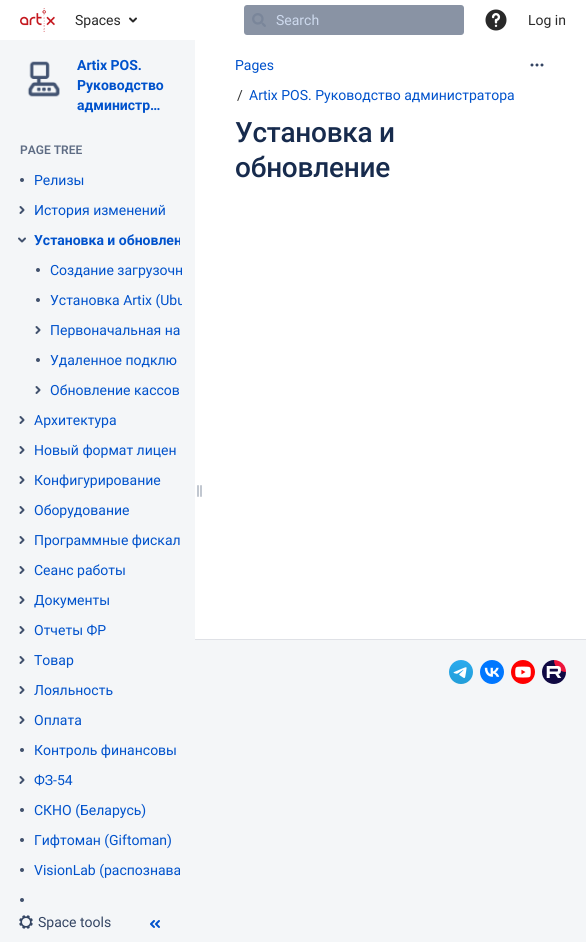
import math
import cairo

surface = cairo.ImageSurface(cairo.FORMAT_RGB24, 586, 942)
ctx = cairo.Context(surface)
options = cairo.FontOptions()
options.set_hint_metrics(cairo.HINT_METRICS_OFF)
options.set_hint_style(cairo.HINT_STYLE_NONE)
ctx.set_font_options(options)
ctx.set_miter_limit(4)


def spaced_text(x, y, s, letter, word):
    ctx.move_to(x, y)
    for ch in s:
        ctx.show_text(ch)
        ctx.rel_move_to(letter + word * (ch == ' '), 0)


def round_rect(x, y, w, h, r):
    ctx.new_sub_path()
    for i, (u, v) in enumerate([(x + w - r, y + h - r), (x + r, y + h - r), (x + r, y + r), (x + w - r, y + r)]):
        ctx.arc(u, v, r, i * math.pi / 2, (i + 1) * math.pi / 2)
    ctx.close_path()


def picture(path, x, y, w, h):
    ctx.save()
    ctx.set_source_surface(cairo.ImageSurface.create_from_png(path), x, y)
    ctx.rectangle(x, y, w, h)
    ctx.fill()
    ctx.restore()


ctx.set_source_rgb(0.957, 0.961, 0.969)
ctx.paint()
ctx.set_source_rgb(1, 1, 1)
ctx.rectangle(0, 0, 586, 40)
ctx.fill()
picture("img1.png", 20, 8, 35, 24)
ctx.select_font_face("Roboto")
ctx.set_font_size(14)
ctx.set_source_rgb(0.161, 0.161, 0.161)
ctx.move_to(75, 25)
ctx.show_text("Spaces")
picture("img2.png", 129, 17, 8, 6)
ctx.set_source_rgb(0.537, 0.576, 0.643)
round_rect(244, 5, 220, 30, 3)
ctx.fill()
picture("img3.png", 252, 13, 14, 14)
ctx.set_source_rgb(0.804, 0.851, 0.929)
ctx.move_to(276, 25)
ctx.show_text("Search")
picture("img4.png", 485, 9, 22, 22)
ctx.set_source_rgb(0.161, 0.161, 0.161)
ctx.move_to(528, 25)
ctx.show_text("Log in")
picture("img5.png", 27, 61, 33, 36)
ctx.select_font_face("Roboto", cairo.FONT_SLANT_NORMAL, cairo.FONT_WEIGHT_BOLD)
ctx.set_source_rgb(0, 0.322, 0.8)
ctx.move_to(77, 70)
ctx.show_text("Artix POS.")
ctx.move_to(77, 90)
ctx.show_text("Руководство")
ctx.move_to(77, 110)
ctx.show_text("администр…")
ctx.select_font_face("Roboto SemiBold")
ctx.set_font_size(12)
ctx.set_source_rgb(0.369, 0.424, 0.518)
ctx.move_to(20, 154)
ctx.show_text("PAGE TREE")
ctx.set_source_rgb(0.259, 0.322, 0.431)
ctx.new_path()
ctx.arc(22, 180, 2, 0, 2 * math.pi)
ctx.fill()
ctx.select_font_face("Roboto")
ctx.set_font_size(14)
ctx.set_source_rgb(0, 0.322, 0.8)
ctx.move_to(34, 185)
ctx.show_text("Релизы")
picture("img6.png", 19, 206, 6, 8)
ctx.move_to(34, 215)
ctx.show_text("История изменений")
picture("img7.png", 18, 237, 8, 6)
ctx.save()
ctx.rectangle(34, 230, 146, 20)
ctx.clip()
ctx.select_font_face("Roboto", cairo.FONT_SLANT_NORMAL, cairo.FONT_WEIGHT_BOLD)
ctx.move_to(34, 245)
ctx.show_text("Установка и обновлен")
ctx.restore()
ctx.set_source_rgb(0.259, 0.322, 0.431)
ctx.new_path()
ctx.arc(38, 270, 2, 0, 2 * math.pi)
ctx.fill()
ctx.save()
ctx.rectangle(50, 260, 132, 20)
ctx.clip()
ctx.set_source_rgb(0, 0.322, 0.8)
ctx.move_to(50, 275)
ctx.show_text("Создание загрузочн")
ctx.restore()
ctx.new_path()
ctx.arc(38, 300, 2, 0, 2 * math.pi)
ctx.fill()
ctx.save()
ctx.rectangle(50, 290, 132, 20)
ctx.clip()
ctx.set_source_rgb(0, 0.322, 0.8)
ctx.move_to(50, 305)
ctx.show_text("Установка Artix (Ubu")
ctx.restore()
picture("img6.png", 35, 326, 6, 8)
ctx.set_source_rgb(0, 0.322, 0.8)
ctx.move_to(50, 335)
ctx.show_text("Первоначальная на")
ctx.set_source_rgb(0.259, 0.322, 0.431)
ctx.new_path()
ctx.arc(38, 360, 2, 0, 2 * math.pi)
ctx.fill()
ctx.set_source_rgb(0, 0.322, 0.8)
ctx.move_to(50, 365)
ctx.show_text("Удаленное подклю")
picture("img6.png", 35, 386, 6, 8)
ctx.move_to(50, 395)
ctx.show_text("Обновление кассов")
picture("img6.png", 19, 416, 6, 8)
ctx.move_to(34, 425)
ctx.show_text("Архитектура")
picture("img6.png", 19, 446, 6, 8)
ctx.move_to(34, 455)
ctx.show_text("Новый формат лицен")
picture("img6.png", 19, 476, 6, 8)
ctx.move_to(34, 485)
ctx.show_text("Конфигурирование")
picture("img6.png", 19, 506, 6, 8)
ctx.move_to(34, 515)
ctx.show_text("Оборудование")
picture("img6.png", 19, 536, 6, 8)
ctx.move_to(34, 545)
ctx.show_text("Программные фискал")
picture("img6.png", 19, 566, 6, 8)
ctx.move_to(34, 575)
ctx.show_text("Сеанс работы")
picture("img6.png", 19, 596, 6, 8)
ctx.move_to(34, 605)
ctx.show_text("Документы")
picture("img6.png", 19, 626, 6, 8)
ctx.move_to(34, 635)
ctx.show_text("Отчеты ФР")
picture("img6.png", 19, 656, 6, 8)
ctx.move_to(34, 665)
ctx.show_text("Товар")
picture("img6.png", 19, 686, 6, 8)
ctx.move_to(34, 695)
ctx.show_text("Лояльность")
picture("img6.png", 19, 716, 6, 8)
ctx.move_to(34, 725)
ctx.show_text("Оплата")
ctx.set_source_rgb(0.259, 0.322, 0.431)
ctx.new_path()
ctx.arc(22, 750, 2, 0, 2 * math.pi)
ctx.fill()
ctx.set_source_rgb(0, 0.322, 0.8)
ctx.move_to(34, 755)
ctx.show_text("Контроль финансовы")
picture("img6.png", 19, 776, 6, 8)
ctx.move_to(34, 785)
ctx.show_text("ФЗ-54")
ctx.set_source_rgb(0.259, 0.322, 0.431)
ctx.new_path()
ctx.arc(22, 810, 2, 0, 2 * math.pi)
ctx.fill()
ctx.set_source_rgb(0, 0.322, 0.8)
ctx.move_to(34, 815)
ctx.show_text("СКНО (Беларусь)")
ctx.set_source_rgb(0.259, 0.322, 0.431)
ctx.new_path()
ctx.arc(22, 840, 2, 0, 2 * math.pi)
ctx.fill()
ctx.set_source_rgb(0, 0.322, 0.8)
ctx.move_to(34, 845)
ctx.show_text("Гифтоман (Giftoman)")
ctx.set_source_rgb(0.259, 0.322, 0.431)
ctx.new_path()
ctx.arc(22, 870, 2, 0, 2 * math.pi)
ctx.fill()
ctx.save()
ctx.rectangle(34, 860, 146, 20)
ctx.clip()
ctx.set_source_rgb(0, 0.322, 0.8)
ctx.move_to(34, 875)
ctx.show_text("VisionLab (распознава")
ctx.restore()
ctx.new_path()
ctx.arc(22, 900, 2, 0, 2 * math.pi)
ctx.fill()
ctx.set_source_rgb(1, 1, 1)
ctx.rectangle(195, 40, 391, 599)
ctx.fill()
picture("img8.png", 197, 485, 5, 12)
picture("img9.png", 19, 915, 14, 14)
ctx.set_source_rgb(0.204, 0.271, 0.388)
ctx.move_to(38, 927)
ctx.show_text("Space tools")
picture("img10.png", 150, 920, 10, 8)
ctx.set_source_rgb(0.875, 0.882, 0.902)
ctx.rectangle(195, 639, 391, 1)
ctx.fill()
ctx.set_source_rgb(0, 0.322, 0.8)
ctx.move_to(235, 70)
ctx.show_text("Pages")
ctx.set_source_rgb(0.2, 0.2, 0.2)
ctx.move_to(237, 100)
ctx.show_text("/")
ctx.set_source_rgb(0, 0.322, 0.8)
ctx.move_to(249, 100)
ctx.show_text("Artix POS. Руководство администратора")
ctx.select_font_face("Roboto Medium")
ctx.set_font_size(28)
ctx.set_source_rgb(0.09, 0.169, 0.302)
spaced_text(235, 142, "Установка и", -0.25, 0)
spaced_text(235, 177, "обновление", -0.25, 0)
picture("img11.png", 530, 63, 14, 4)
picture("img12.png", 449, 660, 24, 24)
picture("img13.png", 480, 660, 24, 24)
picture("img14.png", 511, 660, 24, 24)
picture("img15.png", 542, 660, 24, 24)
surface.write_to_png("page.png")
